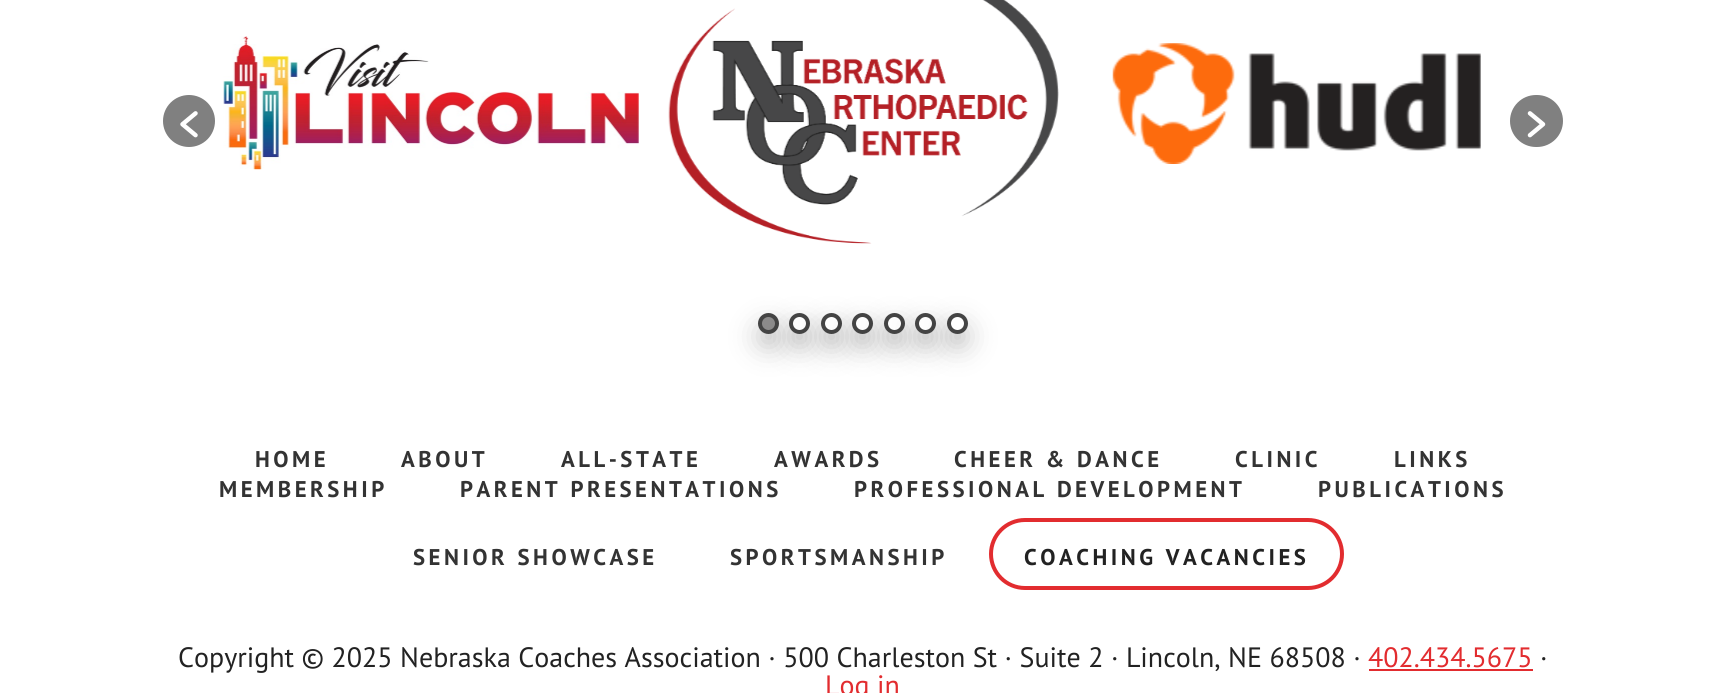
import math
import cairo

surface = cairo.ImageSurface(cairo.FORMAT_RGB24, 1725, 693)
ctx = cairo.Context(surface)
options = cairo.FontOptions()
options.set_hint_metrics(cairo.HINT_METRICS_OFF)
options.set_hint_style(cairo.HINT_STYLE_NONE)
ctx.set_font_options(options)
ctx.set_miter_limit(4)


def spaced_text(x, y, s, letter, word):
    ctx.move_to(x, y)
    for ch in s:
        ctx.show_text(ch)
        ctx.rel_move_to(letter + word * (ch == ' '), 0)


def round_rect(x, y, w, h, r):
    ctx.new_sub_path()
    for i, (u, v) in enumerate([(x + w - r, y + h - r), (x + r, y + h - r), (x + r, y + r), (x + w - r, y + r)]):
        ctx.arc(u, v, r, i * math.pi / 2, (i + 1) * math.pi / 2)
    ctx.close_path()


def shadow(x, y, w, h, r, blur, alpha):
    ctx.push_group_with_content(cairo.CONTENT_ALPHA)
    ctx.set_operator(cairo.OPERATOR_SOURCE)
    for i in range(15, -16, -2):
        e = blur * i / 6
        if min(w, h) + 2 * e > 0:
            ctx.set_source_rgba(0, 0, 0, alpha * math.erfc((i - 1) / 8.5) / 2)
            round_rect(x - e, y - e, w + 2 * e, h + 2 * e, max(0, min(r + e + blur * .6, min(w, h) / 2 + e)))
            ctx.fill()
    ctx.mask(ctx.pop_group())


def picture(path, x, y, w, h):
    ctx.save()
    ctx.set_source_surface(cairo.ImageSurface.create_from_png(path), x, y)
    ctx.rectangle(x, y, w, h)
    ctx.fill()
    ctx.restore()


ctx.set_source_rgb(1, 1, 1)
ctx.paint()
ctx.set_source_rgb(0.502, 0.502, 0.502)
ctx.arc(189, 121, 26, 0, 2 * math.pi)
ctx.fill()
picture("img1.png", 180, 111, 18, 27)
picture("img2.png", 223, 36, 416, 134)
picture("img3.png", 668, 0, 391, 244)
picture("img4.png", 1112, 43, 369, 121)
round_rect(1510, 95, 53, 52, 26)
ctx.fill()
picture("img5.png", 1527, 111, 19, 27)
ctx.set_source_rgb(0, 0, 0)
shadow(758, 326, 21, 21, 10.5, 14, 0.2)
ctx.set_source_rgb(0.553, 0.549, 0.549)
ctx.arc(768.5, 323.5, 8.5, 0, 2 * math.pi)
ctx.fill_preserve()
ctx.set_source_rgb(0.267, 0.267, 0.267)
ctx.set_line_width(4)
ctx.stroke()
ctx.set_source_rgb(0, 0, 0)
shadow(789, 326, 21, 21, 10.5, 14, 0.2)
ctx.set_source_rgb(1, 1, 1)
ctx.arc(799.5, 323.5, 8.5, 0, 2 * math.pi)
ctx.fill_preserve()
ctx.set_source_rgb(0.267, 0.267, 0.267)
ctx.stroke()
ctx.set_source_rgb(0, 0, 0)
shadow(821, 326, 21, 21, 10.5, 14, 0.2)
ctx.set_source_rgb(1, 1, 1)
ctx.arc(831.5, 323.5, 8.5, 0, 2 * math.pi)
ctx.fill_preserve()
ctx.set_source_rgb(0.267, 0.267, 0.267)
ctx.stroke()
ctx.set_source_rgb(0, 0, 0)
shadow(852, 326, 21, 21, 10.5, 14, 0.2)
ctx.set_source_rgb(1, 1, 1)
ctx.arc(862.5, 323.5, 8.5, 0, 2 * math.pi)
ctx.fill_preserve()
ctx.set_source_rgb(0.267, 0.267, 0.267)
ctx.stroke()
ctx.set_source_rgb(0, 0, 0)
shadow(884, 326, 21, 21, 10.5, 14, 0.2)
ctx.set_source_rgb(1, 1, 1)
ctx.arc(894.5, 323.5, 8.5, 0, 2 * math.pi)
ctx.fill_preserve()
ctx.set_source_rgb(0.267, 0.267, 0.267)
ctx.stroke()
ctx.set_source_rgb(0, 0, 0)
shadow(915, 326, 21, 21, 10.5, 14, 0.2)
ctx.set_source_rgb(1, 1, 1)
ctx.arc(925.5, 323.5, 8.5, 0, 2 * math.pi)
ctx.fill_preserve()
ctx.set_source_rgb(0.267, 0.267, 0.267)
ctx.stroke()
ctx.set_source_rgb(0, 0, 0)
shadow(947, 326, 21, 21, 10.5, 14, 0.2)
ctx.set_source_rgb(1, 1, 1)
ctx.arc(957.5, 323.5, 8.5, 0, 2 * math.pi)
ctx.fill_preserve()
ctx.set_source_rgb(0.267, 0.267, 0.267)
ctx.stroke()
ctx.select_font_face("PT Sans", cairo.FONT_SLANT_NORMAL, cairo.FONT_WEIGHT_BOLD)
ctx.set_font_size(22.75)
ctx.set_source_rgb(0.2, 0.2, 0.2)
spaced_text(255, 467, "HOME", 3.5, 0)
spaced_text(401, 467, "ABOUT", 3.5, 0)
spaced_text(561, 467, "ALL-STATE", 3.5, 0)
spaced_text(774, 467, "AWARDS", 3.5, 0)
spaced_text(954, 467, "CHEER & DANCE", 3.5, 0)
spaced_text(1235, 467, "CLINIC", 3.5, 0)
spaced_text(1394, 467, "LINKS", 3.5, 0)
spaced_text(219, 497, "MEMBERSHIP", 3.5, 0)
spaced_text(460, 497, "PARENT PRESENTATIONS", 3.5, 0)
spaced_text(854, 497, "PROFESSIONAL DEVELOPMENT", 3.5, 0)
spaced_text(1318, 497, "PUBLICATIONS", 3.5, 0)
spaced_text(413, 565, "SENIOR SHOWCASE", 3.5, 0)
spaced_text(730, 565, "SPORTSMANSHIP", 3.5, 0)
round_rect(991, 520, 351, 68, 34)
ctx.set_source_rgb(0.886, 0.173, 0.184)
ctx.stroke()
ctx.set_source_rgb(0.133, 0.133, 0.133)
spaced_text(1024, 565, "COACHING VACANCIES", 3.5, 0)
ctx.select_font_face("PT Sans")
ctx.set_font_size(28)
ctx.move_to(178, 667)
ctx.show_text("Copyright © 2025 Nebraska Coaches Association · 500 Charleston St · Suite 2 · Lincoln, NE 68508 ·")
ctx.set_source_rgb(0.886, 0.173, 0.184)
ctx.move_to(1368, 667)
ctx.show_text("402.434.5675")
ctx.rectangle(1369, 669, 164, 2)
ctx.fill()
ctx.set_source_rgb(0.133, 0.133, 0.133)
ctx.move_to(1540, 667)
ctx.show_text("·")
ctx.set_source_rgb(0.886, 0.173, 0.184)
ctx.move_to(825, 695)
ctx.show_text("Log in")
surface.write_to_png("page.png")
